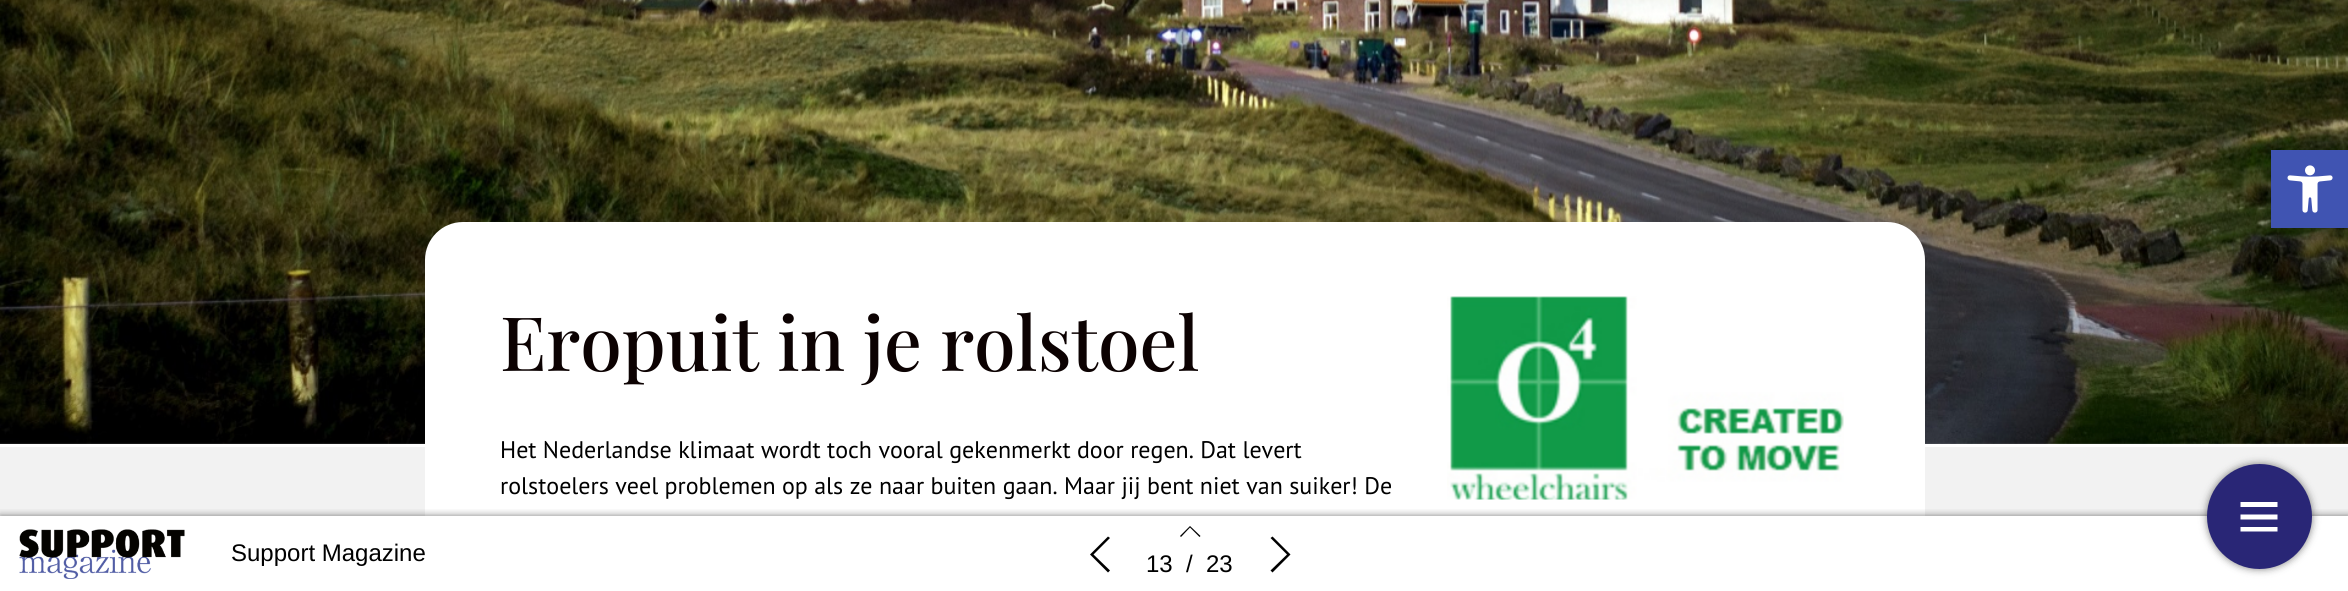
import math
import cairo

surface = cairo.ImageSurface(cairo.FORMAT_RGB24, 2348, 591)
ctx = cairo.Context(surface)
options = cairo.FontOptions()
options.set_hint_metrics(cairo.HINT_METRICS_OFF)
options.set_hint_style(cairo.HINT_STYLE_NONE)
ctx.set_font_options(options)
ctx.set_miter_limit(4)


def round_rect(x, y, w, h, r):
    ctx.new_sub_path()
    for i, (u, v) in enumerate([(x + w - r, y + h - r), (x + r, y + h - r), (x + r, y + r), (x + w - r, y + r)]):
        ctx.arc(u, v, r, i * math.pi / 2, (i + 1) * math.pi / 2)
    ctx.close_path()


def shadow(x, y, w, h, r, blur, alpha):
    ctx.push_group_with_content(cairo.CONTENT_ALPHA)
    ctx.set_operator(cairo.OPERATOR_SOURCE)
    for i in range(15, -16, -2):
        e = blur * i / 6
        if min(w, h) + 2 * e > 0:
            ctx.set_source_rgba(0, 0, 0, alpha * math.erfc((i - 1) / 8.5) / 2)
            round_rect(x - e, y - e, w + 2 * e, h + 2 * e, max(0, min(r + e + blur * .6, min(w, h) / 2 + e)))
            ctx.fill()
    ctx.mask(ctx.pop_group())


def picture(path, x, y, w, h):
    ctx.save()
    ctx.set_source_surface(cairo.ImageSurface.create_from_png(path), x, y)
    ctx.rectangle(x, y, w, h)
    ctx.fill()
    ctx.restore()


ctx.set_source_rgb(1, 1, 1)
ctx.paint()
picture("img2.png", 0, 0, 2348, 444)
ctx.set_source_rgb(0, 0, 0)
shadow(2271, 150, 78, 78, 0, 7.5, 0.1)
shadow(2271, 150, 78, 78, 0, 7.5, 0.1)
ctx.set_source_rgb(0.251, 0.329, 0.698)
ctx.rectangle(2271, 150, 77, 78)
ctx.fill()
picture("img1.png", 2287, 165, 46, 48)
ctx.set_source_rgb(0.949, 0.949, 0.949)
ctx.rectangle(0, 447, 2348, 69)
ctx.fill()
ctx.set_source_rgb(1, 1, 1)
ctx.new_path()
ctx.move_to(463, 222)
ctx.line_to(1887, 222)
ctx.curve_to(1908, 222, 1925, 239, 1925, 260)
ctx.line_to(1925, 516)
ctx.line_to(425, 516)
ctx.line_to(425, 260)
ctx.curve_to(425, 239, 442, 222, 463, 222)
ctx.close_path()
ctx.fill()
ctx.select_font_face("Playfair Display Medium")
ctx.set_font_size(75)
ctx.set_source_rgb(0.047, 0.008, 0.008)
ctx.move_to(500, 371)
ctx.show_text("Eropuit in je rolstoel")
ctx.select_font_face("PT Sans")
ctx.set_font_size(24)
ctx.set_source_rgb(0, 0, 0)
ctx.move_to(500, 458)
ctx.show_text("Het Nederlandse klimaat wordt toch vooral gekenmerkt door regen. Dat levert")
ctx.move_to(500, 494)
ctx.show_text("rolstoelers veel problemen op als ze naar buiten gaan. Maar jij bent niet van suiker! De")
picture("img3.png", 1447, 296, 397, 204)
ctx.save()
ctx.rectangle(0, 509, 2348, 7)
ctx.clip()
ctx.set_source_rgb(0, 0, 0)
shadow(0, 516, 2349, 75, 0, 4, 0.5)
ctx.restore()
picture("img4.png", 19, 529, 166, 50)
ctx.select_font_face("Liberation Sans")
ctx.move_to(231, 561)
ctx.show_text("Support Magazine")
ctx.new_path()
ctx.move_to(1093.5, 554.5)
ctx.line_to(1110, 570.5)
ctx.line_to(1108, 572.5)
ctx.line_to(1090, 554.5)
ctx.line_to(1108, 536.5)
ctx.line_to(1110, 538)
ctx.close_path()
ctx.fill()
ctx.new_path()
ctx.move_to(1200.5, 536)
ctx.line_to(1199.5, 537)
ctx.line_to(1190, 527.5)
ctx.line_to(1181, 537)
ctx.line_to(1180, 536)
ctx.line_to(1190, 526)
ctx.close_path()
ctx.fill()
ctx.move_to(1146, 572)
ctx.show_text("13")
ctx.move_to(1186, 572)
ctx.show_text("/")
ctx.move_to(1206, 572)
ctx.show_text("23")
ctx.new_path()
ctx.move_to(1290.5, 554.5)
ctx.line_to(1272.5, 572.5)
ctx.line_to(1270.5, 570.5)
ctx.line_to(1287, 554.5)
ctx.line_to(1270.5, 538)
ctx.line_to(1272.5, 536.5)
ctx.close_path()
ctx.fill()
ctx.set_source_rgb(0, 0, 0)
shadow(2207, 464, 105, 105, 52.5, 4, 0.5)
ctx.set_source_rgb(0.161, 0.149, 0.463)
ctx.arc(2259.5, 516.5, 52.5, 0, 2 * math.pi)
ctx.fill()
ctx.set_source_rgb(1, 1, 1)
ctx.new_path()
ctx.move_to(2277.5, 502)
ctx.line_to(2277.5, 507)
ctx.line_to(2240.5, 507)
ctx.line_to(2240.5, 502)
ctx.close_path()
ctx.move_to(2240.5, 519.5)
ctx.line_to(2277.5, 519.5)
ctx.line_to(2277.5, 514.5)
ctx.line_to(2240.5, 514.5)
ctx.close_path()
ctx.move_to(2240.5, 531.5)
ctx.line_to(2277.5, 531.5)
ctx.line_to(2277.5, 527)
ctx.line_to(2240.5, 527)
ctx.close_path()
ctx.fill()
surface.write_to_png("page.png")
